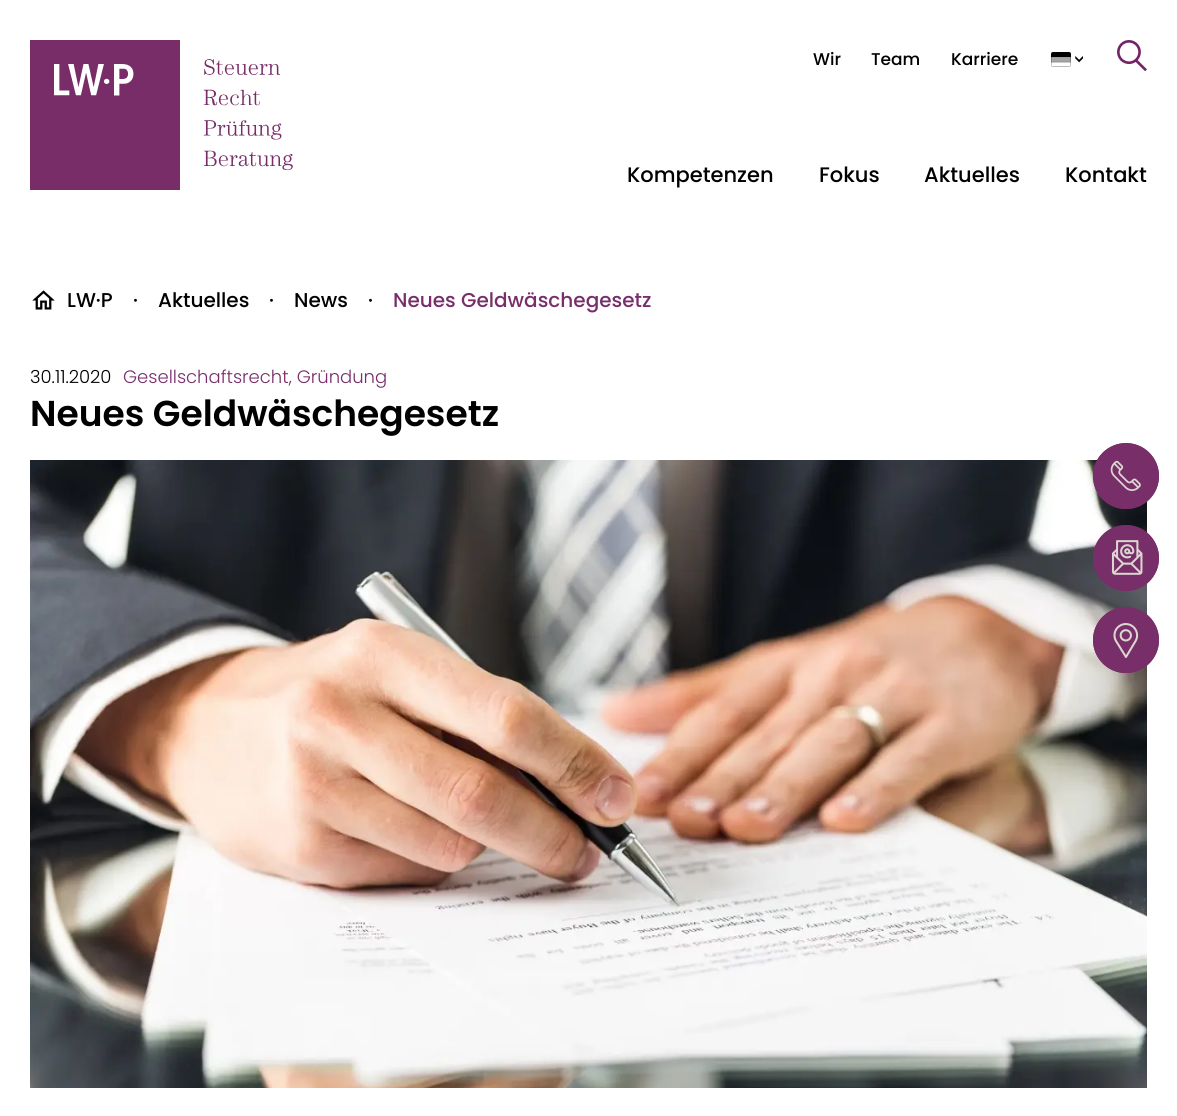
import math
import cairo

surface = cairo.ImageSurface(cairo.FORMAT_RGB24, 1177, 1116)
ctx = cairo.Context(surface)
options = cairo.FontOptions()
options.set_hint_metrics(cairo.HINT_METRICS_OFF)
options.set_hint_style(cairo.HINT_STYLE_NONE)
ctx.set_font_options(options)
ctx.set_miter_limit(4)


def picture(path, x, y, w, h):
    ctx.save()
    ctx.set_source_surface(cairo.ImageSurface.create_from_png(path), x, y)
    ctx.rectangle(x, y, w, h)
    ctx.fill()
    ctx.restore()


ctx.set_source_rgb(1, 1, 1)
ctx.paint()
picture("img1.png", 30, 40, 263, 150)
ctx.select_font_face("Poppins Medium")
ctx.set_font_size(17)
ctx.set_source_rgb(0, 0, 0)
ctx.move_to(813, 65)
ctx.show_text("Wir")
ctx.move_to(871, 65)
ctx.show_text("Team")
ctx.move_to(951, 65)
ctx.show_text("Karriere")
picture("img2.png", 1051, 52, 20, 15)
ctx.save()
ctx.translate(1073, 54)
ctx.rotate(90 * math.pi / 180)
ctx.move_to(0, 0)
ctx.show_text(">")
ctx.restore()
picture("img3.png", 1117, 40, 30, 31)
ctx.set_font_size(21)
ctx.move_to(627, 182)
ctx.show_text("Kompetenzen")
ctx.move_to(819, 182)
ctx.show_text("Fokus")
ctx.move_to(924, 182)
ctx.show_text("Aktuelles")
ctx.move_to(1065, 182)
ctx.show_text("Kontakt")
picture("img4.png", 32, 290, 23, 20)
ctx.set_font_size(20)
ctx.move_to(67, 307)
ctx.show_text("LW·P")
ctx.move_to(133, 307)
ctx.show_text("·")
ctx.move_to(158, 307)
ctx.show_text("Aktuelles")
ctx.move_to(269, 307)
ctx.show_text("·")
ctx.move_to(294, 307)
ctx.show_text("News")
ctx.move_to(368, 307)
ctx.show_text("·")
ctx.set_source_rgb(0.471, 0.18, 0.416)
ctx.move_to(393, 307)
ctx.show_text("Neues Geldwäschegesetz")
ctx.select_font_face("Poppins Light")
ctx.set_font_size(18)
ctx.set_source_rgb(0, 0, 0)
ctx.move_to(30, 383)
ctx.show_text("30.11.2020")
ctx.set_source_rgb(0.471, 0.18, 0.416)
ctx.move_to(123, 383)
ctx.show_text("Gesellschaftsrecht, Gründung")
ctx.select_font_face("Poppins SemiBold")
ctx.set_font_size(36)
ctx.set_source_rgb(0, 0, 0)
ctx.move_to(30, 426)
ctx.show_text("Neues Geldwäschegesetz")
picture("img5.png", 30, 460, 1117, 628)
ctx.set_source_rgb(0.471, 0.18, 0.416)
ctx.arc(1126, 476, 33, 0, 2 * math.pi)
ctx.fill()
picture("img6.png", 1093, 443, 66, 66)
ctx.arc(1126, 558, 33, 0, 2 * math.pi)
ctx.fill()
picture("img7.png", 1093, 525, 66, 66)
ctx.arc(1126, 640, 33, 0, 2 * math.pi)
ctx.fill()
picture("img8.png", 1093, 607, 66, 66)
surface.write_to_png("page.png")
